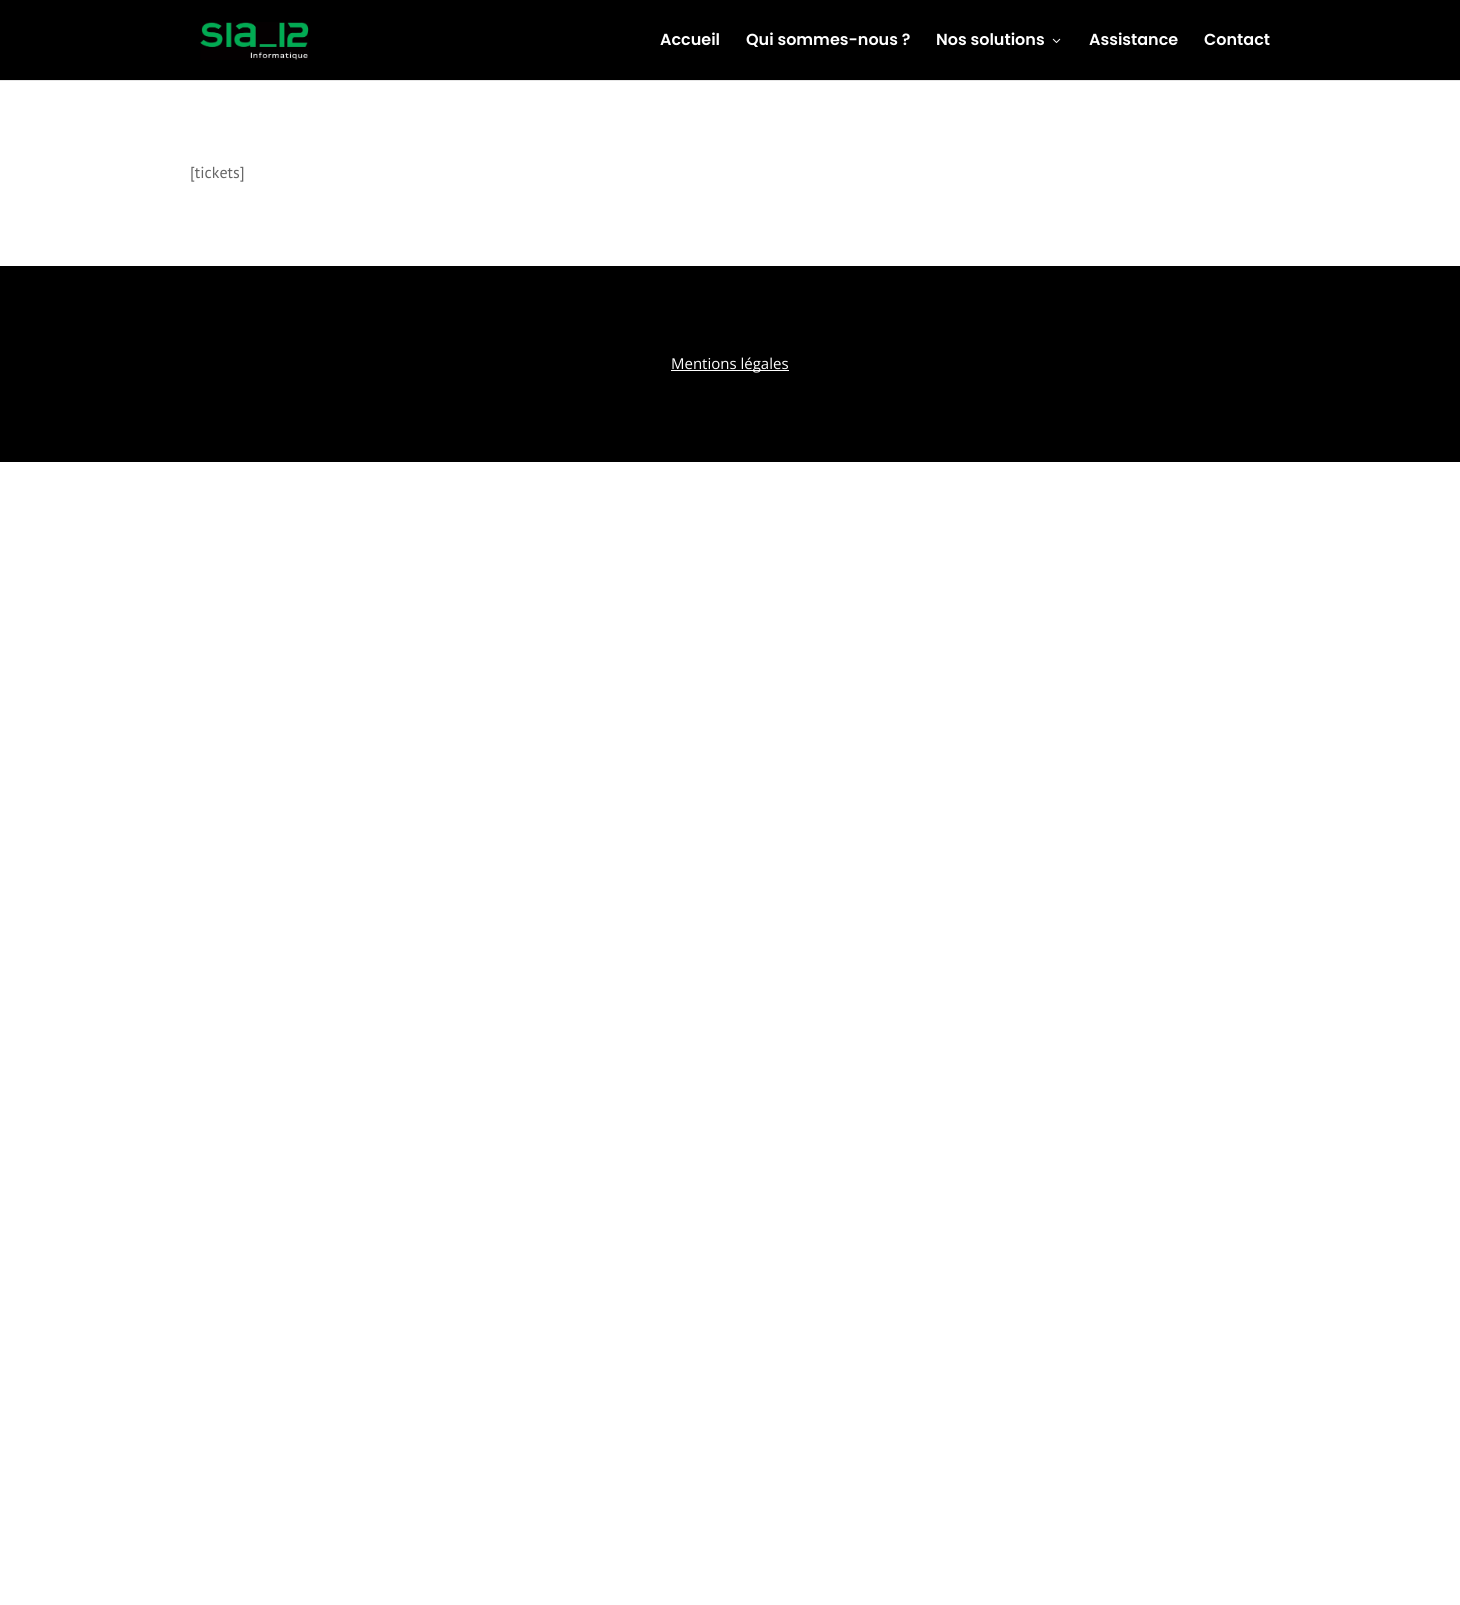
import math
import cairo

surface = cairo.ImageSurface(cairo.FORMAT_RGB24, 1460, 1605)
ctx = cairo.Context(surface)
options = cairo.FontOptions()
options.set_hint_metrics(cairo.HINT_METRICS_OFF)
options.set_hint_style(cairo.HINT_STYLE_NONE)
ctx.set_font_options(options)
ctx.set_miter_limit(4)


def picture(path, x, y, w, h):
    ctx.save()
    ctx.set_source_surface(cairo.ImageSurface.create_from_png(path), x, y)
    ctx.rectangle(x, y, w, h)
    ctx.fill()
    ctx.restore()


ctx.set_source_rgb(1, 1, 1)
ctx.paint()
ctx.set_source_rgb(0.902, 0.902, 0.902)
ctx.rectangle(0, 80, 1460, 1)
ctx.fill()
ctx.set_source_rgb(0, 0, 0)
ctx.rectangle(0, 0, 1460, 80)
ctx.fill()
picture("img1.png", 200, 22, 109, 38)
ctx.select_font_face("Poppins SemiBold")
ctx.set_font_size(16)
ctx.set_source_rgb(1, 1, 1)
ctx.move_to(660, 45)
ctx.show_text("Accueil")
ctx.move_to(746, 45)
ctx.show_text("Qui sommes-nous ?")
ctx.move_to(936, 45)
ctx.show_text("Nos solutions")
picture("img2.png", 1052, 38, 9, 5)
ctx.move_to(1089, 45)
ctx.show_text("Assistance")
ctx.move_to(1204, 45)
ctx.show_text("Contact")
ctx.select_font_face("PT Sans")
ctx.set_source_rgb(0.4, 0.4, 0.4)
ctx.move_to(190, 178)
ctx.show_text("[tickets]")
ctx.set_source_rgb(0, 0, 0)
ctx.rectangle(0, 266, 1460, 196)
ctx.fill()
ctx.set_source_rgb(1, 1, 1)
ctx.rectangle(671, 370, 118, 1)
ctx.fill()
ctx.select_font_face("Open Sans")
ctx.set_font_size(15)
ctx.move_to(671, 369)
ctx.show_text("Mentions légales")
surface.write_to_png("page.png")
